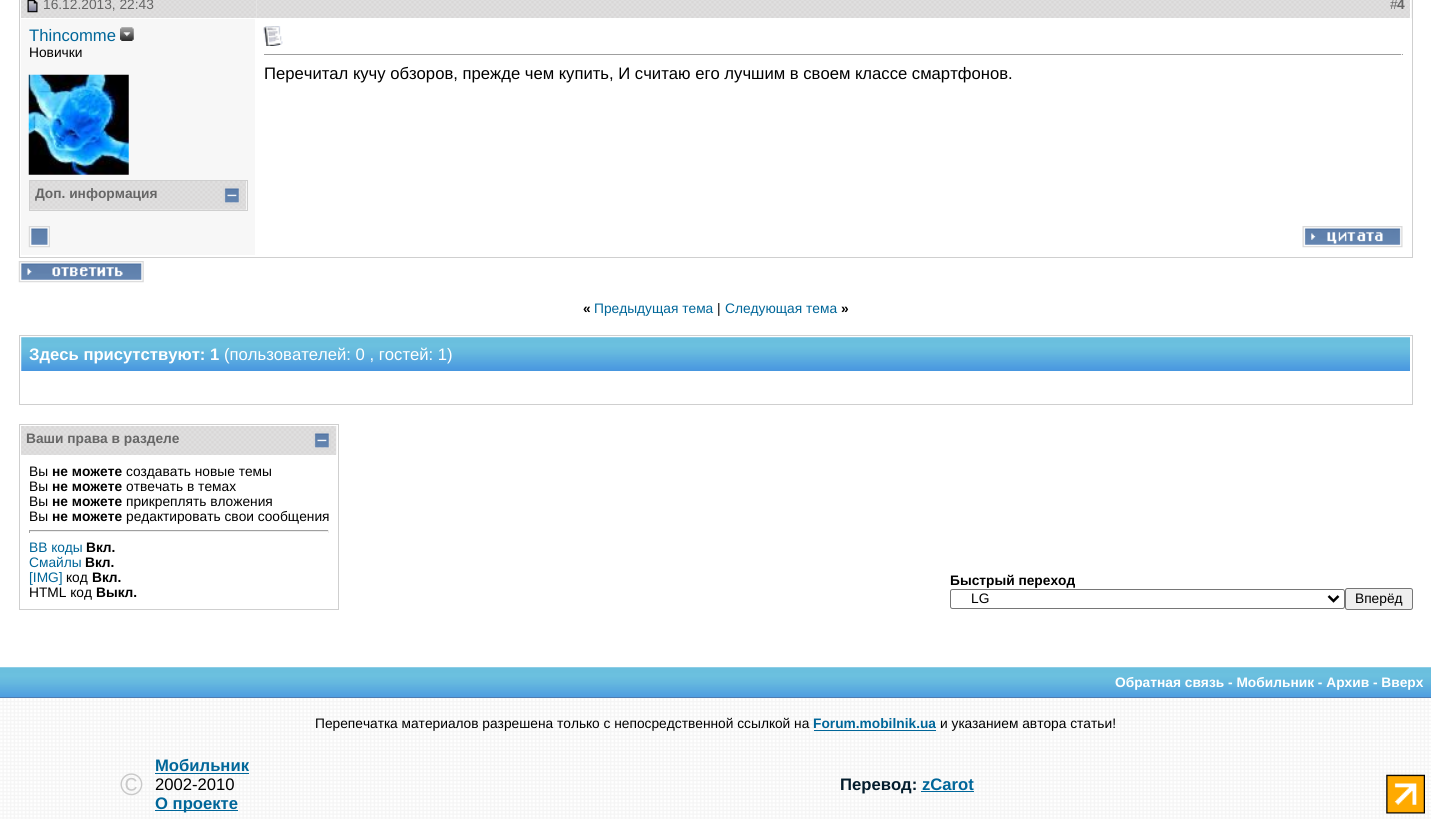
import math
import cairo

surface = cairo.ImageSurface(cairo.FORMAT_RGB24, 1431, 819)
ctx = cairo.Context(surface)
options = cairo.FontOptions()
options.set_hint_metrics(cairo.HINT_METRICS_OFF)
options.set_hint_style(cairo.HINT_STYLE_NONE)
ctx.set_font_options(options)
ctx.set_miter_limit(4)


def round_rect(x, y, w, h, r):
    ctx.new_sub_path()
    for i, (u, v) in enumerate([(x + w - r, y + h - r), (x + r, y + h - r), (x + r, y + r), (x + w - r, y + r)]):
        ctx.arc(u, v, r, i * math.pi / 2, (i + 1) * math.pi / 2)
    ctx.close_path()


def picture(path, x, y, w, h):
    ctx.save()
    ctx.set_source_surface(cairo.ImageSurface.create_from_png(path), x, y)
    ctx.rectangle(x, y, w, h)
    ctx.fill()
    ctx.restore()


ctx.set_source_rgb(1, 1, 1)
ctx.paint()
picture("img1.png", 0, 698, 1431, 121)
ctx.rectangle(19.5, -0.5, 1393, 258)
ctx.set_source_rgb(0.812, 0.812, 0.812)
ctx.set_line_width(1)
ctx.stroke()
picture("img2.png", 21, 0, 236, 18)
picture("img3.png", 27, 0, 11, 13)
ctx.select_font_face("Liberation Sans")
ctx.set_font_size(13.75)
ctx.set_source_rgb(0.4, 0.4, 0.4)
ctx.move_to(43, 9)
ctx.show_text("16.12.2013, 22:43")
picture("img4.png", 256, 0, 1156, 19)
ctx.set_source_rgb(1, 1, 1)
ctx.rectangle(1410, 0, 1, 19)
ctx.fill()
ctx.rectangle(256, 18, 1155, 1)
ctx.fill()
ctx.set_source_rgb(0.4, 0.4, 0.4)
ctx.move_to(1390, 9)
ctx.show_text("#")
ctx.select_font_face("Liberation Sans", cairo.FONT_SLANT_NORMAL, cairo.FONT_WEIGHT_BOLD)
ctx.move_to(1397, 9)
ctx.show_text("4")
ctx.set_source_rgb(0.965, 0.965, 0.965)
ctx.rectangle(21, 19, 234, 236)
ctx.fill()
ctx.select_font_face("Liberation Sans")
ctx.set_font_size(16.65)
ctx.set_source_rgb(0, 0.4, 0.6)
ctx.move_to(29, 41)
ctx.show_text("Thincomme")
picture("img5.png", 120, 27, 14, 14)
ctx.set_font_size(13.75)
ctx.set_source_rgb(0, 0, 0)
ctx.move_to(29, 57)
ctx.show_text("Новички")
picture("img6.png", 28, 74, 101, 101)
ctx.set_source_rgb(1, 1, 1)
ctx.rectangle(29.5, 180.5, 218, 30)
ctx.fill_preserve()
ctx.set_source_rgb(0.812, 0.812, 0.812)
ctx.stroke()
picture("img7.png", 30, 181, 217, 29)
ctx.select_font_face("Liberation Sans", cairo.FONT_SLANT_NORMAL, cairo.FONT_WEIGHT_BOLD)
ctx.set_source_rgb(0.4, 0.4, 0.4)
ctx.move_to(35, 198)
ctx.show_text("Доп. информация")
picture("img8.png", 223, 186, 18, 19)
picture("img9.png", 263, 26, 20, 20)
ctx.set_source_rgb(0.624, 0.624, 0.624)
ctx.rectangle(264, 54, 1139, 1)
ctx.fill()
ctx.set_source_rgb(0.933, 0.933, 0.933)
ctx.rectangle(1401, 54, 1, 1)
ctx.fill()
ctx.select_font_face("Liberation Sans")
ctx.set_font_size(16.65)
ctx.set_source_rgb(0, 0, 0)
ctx.move_to(264, 79)
ctx.show_text("Перечитал кучу обзоров, прежде чем купить, И считаю его лучшим в своем классе смартфонов.")
picture("img10.png", 28, 226, 22, 22)
picture("img11.png", 1302, 226, 101, 22)
picture("img12.png", 18, 261, 126, 22)
ctx.select_font_face("Liberation Sans", cairo.FONT_SLANT_NORMAL, cairo.FONT_WEIGHT_BOLD)
ctx.set_font_size(13.75)
ctx.move_to(583, 313)
ctx.show_text("«")
ctx.select_font_face("Liberation Sans")
ctx.set_source_rgb(0, 0.4, 0.6)
ctx.move_to(594, 313)
ctx.show_text("Предыдущая тема")
ctx.set_source_rgb(0, 0, 0)
ctx.move_to(717, 313)
ctx.show_text("|")
ctx.set_source_rgb(0, 0.4, 0.6)
ctx.move_to(725, 313)
ctx.show_text("Следующая тема")
ctx.select_font_face("Liberation Sans", cairo.FONT_SLANT_NORMAL, cairo.FONT_WEIGHT_BOLD)
ctx.set_source_rgb(0, 0, 0)
ctx.move_to(841, 313)
ctx.show_text("»")
ctx.rectangle(19.5, 335.5, 1393, 69)
ctx.set_source_rgb(0.812, 0.812, 0.812)
ctx.stroke()
picture("img13.png", 21, 337, 1389, 34)
ctx.set_font_size(16.65)
ctx.set_source_rgb(1, 1, 1)
ctx.move_to(29, 360)
ctx.show_text("Здесь присутствуют: 1")
ctx.select_font_face("Liberation Sans")
ctx.move_to(224, 360)
ctx.show_text("(пользователей: 0 , гостей: 1)")
ctx.rectangle(19.5, 424.5, 319, 185)
ctx.set_source_rgb(0.812, 0.812, 0.812)
ctx.stroke()
ctx.set_source_rgb(0.878, 0.878, 0.878)
ctx.rectangle(21, 426, 315, 29)
ctx.fill()
picture("img14.png", 21, 426, 316, 29)
ctx.select_font_face("Liberation Sans", cairo.FONT_SLANT_NORMAL, cairo.FONT_WEIGHT_BOLD)
ctx.set_font_size(13.75)
ctx.set_source_rgb(0.4, 0.4, 0.4)
ctx.move_to(26, 443)
ctx.show_text("Ваши права в разделе")
picture("img15.png", 313, 431, 18, 19)
ctx.select_font_face("Liberation Sans")
ctx.set_source_rgb(0, 0, 0)
ctx.move_to(29, 476)
ctx.show_text("Вы")
ctx.select_font_face("Liberation Sans", cairo.FONT_SLANT_NORMAL, cairo.FONT_WEIGHT_BOLD)
ctx.move_to(52, 476)
ctx.show_text("не можете")
ctx.select_font_face("Liberation Sans")
ctx.move_to(126, 476)
ctx.show_text("создавать новые темы")
ctx.move_to(29, 491)
ctx.show_text("Вы")
ctx.select_font_face("Liberation Sans", cairo.FONT_SLANT_NORMAL, cairo.FONT_WEIGHT_BOLD)
ctx.move_to(52, 491)
ctx.show_text("не можете")
ctx.select_font_face("Liberation Sans")
ctx.move_to(126, 491)
ctx.show_text("отвечать в темах")
ctx.move_to(29, 506)
ctx.show_text("Вы")
ctx.select_font_face("Liberation Sans", cairo.FONT_SLANT_NORMAL, cairo.FONT_WEIGHT_BOLD)
ctx.move_to(52, 506)
ctx.show_text("не можете")
ctx.select_font_face("Liberation Sans")
ctx.move_to(126, 506)
ctx.show_text("прикреплять вложения")
ctx.move_to(29, 521)
ctx.show_text("Вы")
ctx.select_font_face("Liberation Sans", cairo.FONT_SLANT_NORMAL, cairo.FONT_WEIGHT_BOLD)
ctx.move_to(52, 521)
ctx.show_text("не можете")
ctx.select_font_face("Liberation Sans")
ctx.move_to(126, 521)
ctx.show_text("редактировать свои сообщения")
ctx.set_source_rgb(0.624, 0.624, 0.624)
ctx.rectangle(29, 530, 300, 1)
ctx.fill()
ctx.set_source_rgb(0.933, 0.933, 0.933)
ctx.rectangle(328, 530, 1, 3)
ctx.fill()
ctx.rectangle(29, 531, 300, 1)
ctx.fill()
ctx.set_source_rgb(0.624, 0.624, 0.624)
ctx.rectangle(29, 530, 1, 3)
ctx.fill()
ctx.set_source_rgb(0, 0.4, 0.6)
ctx.move_to(29, 552)
ctx.show_text("BB коды")
ctx.select_font_face("Liberation Sans", cairo.FONT_SLANT_NORMAL, cairo.FONT_WEIGHT_BOLD)
ctx.set_source_rgb(0, 0, 0)
ctx.move_to(86, 552)
ctx.show_text("Вкл.")
ctx.select_font_face("Liberation Sans")
ctx.set_source_rgb(0, 0.4, 0.6)
ctx.move_to(29, 567)
ctx.show_text("Смайлы")
ctx.select_font_face("Liberation Sans", cairo.FONT_SLANT_NORMAL, cairo.FONT_WEIGHT_BOLD)
ctx.set_source_rgb(0, 0, 0)
ctx.move_to(85, 567)
ctx.show_text("Вкл.")
ctx.select_font_face("Liberation Sans")
ctx.set_source_rgb(0, 0.4, 0.6)
ctx.move_to(29, 582)
ctx.show_text("[IMG]")
ctx.set_source_rgb(0, 0, 0)
ctx.move_to(66, 582)
ctx.show_text("код")
ctx.select_font_face("Liberation Sans", cairo.FONT_SLANT_NORMAL, cairo.FONT_WEIGHT_BOLD)
ctx.move_to(92, 582)
ctx.show_text("Вкл.")
ctx.select_font_face("Liberation Sans")
ctx.move_to(29, 597)
ctx.show_text("HTML код")
ctx.select_font_face("Liberation Sans", cairo.FONT_SLANT_NORMAL, cairo.FONT_WEIGHT_BOLD)
ctx.move_to(96, 597)
ctx.show_text("Выкл.")
ctx.move_to(950, 585)
ctx.show_text("Быстрый переход")
round_rect(950.5, 589.5, 394, 19, 2)
ctx.set_source_rgb(0.463, 0.463, 0.463)
ctx.stroke()
ctx.new_path()
ctx.move_to(1328.5, 596)
ctx.line_to(1333.5, 601)
ctx.line_to(1338.5, 596)
ctx.set_source_rgb(0, 0, 0)
ctx.set_line_width(2.5)
ctx.stroke()
ctx.select_font_face("Liberation Sans")
ctx.move_to(971, 603)
ctx.show_text("LG")
ctx.set_source_rgb(0.937, 0.937, 0.937)
round_rect(1345.5, 588.5, 67, 21, 2)
ctx.fill_preserve()
ctx.set_source_rgb(0.463, 0.463, 0.463)
ctx.set_line_width(1)
ctx.stroke()
ctx.set_source_rgb(0, 0, 0)
ctx.move_to(1355, 603)
ctx.show_text("Вперёд")
ctx.set_source_rgb(0.306, 0.447, 0.635)
ctx.rectangle(0, 697, 1431, 1)
ctx.fill()
picture("img16.png", 0, 667, 1431, 31)
ctx.select_font_face("Liberation Sans", cairo.FONT_SLANT_NORMAL, cairo.FONT_WEIGHT_BOLD)
ctx.set_source_rgb(1, 1, 1)
ctx.move_to(1115, 687)
ctx.show_text("Обратная связь - Мобильник - Архив - Вверх")
ctx.select_font_face("Liberation Sans")
ctx.set_source_rgb(0, 0, 0)
ctx.move_to(315, 728)
ctx.show_text("Перепечатка материалов разрешена только с непосредственной ссылкой на")
ctx.select_font_face("Liberation Sans", cairo.FONT_SLANT_NORMAL, cairo.FONT_WEIGHT_BOLD)
ctx.set_source_rgb(0, 0.4, 0.6)
ctx.move_to(813, 728)
ctx.show_text("Forum.mobilnik.ua")
ctx.rectangle(814, 730, 122, 1)
ctx.fill()
ctx.select_font_face("Liberation Sans")
ctx.set_source_rgb(0, 0, 0)
ctx.move_to(940, 728)
ctx.show_text("и указанием автора статьи!")
ctx.set_font_size(31)
ctx.set_source_rgb(0.788, 0.788, 0.788)
ctx.move_to(120, 795)
ctx.show_text("©")
ctx.select_font_face("Liberation Sans", cairo.FONT_SLANT_NORMAL, cairo.FONT_WEIGHT_BOLD)
ctx.set_font_size(16.65)
ctx.set_source_rgb(0, 0.4, 0.6)
ctx.move_to(155, 771)
ctx.show_text("Мобильник")
ctx.rectangle(155, 773, 94, 1)
ctx.fill()
ctx.select_font_face("Liberation Sans")
ctx.set_source_rgb(0, 0, 0)
ctx.move_to(155, 790)
ctx.show_text("2002-2010")
ctx.set_source_rgb(0, 0.4, 0.6)
ctx.rectangle(155, 810, 83, 1)
ctx.fill()
ctx.select_font_face("Liberation Sans", cairo.FONT_SLANT_NORMAL, cairo.FONT_WEIGHT_BOLD)
ctx.move_to(155, 809)
ctx.show_text("О проекте")
ctx.set_source_rgb(0.012, 0.11, 0.173)
ctx.move_to(840, 790)
ctx.show_text("Перевод:")
ctx.set_source_rgb(0, 0.4, 0.6)
ctx.move_to(922, 790)
ctx.show_text("zCarot")
ctx.rectangle(921, 791, 53, 1)
ctx.fill()
picture("img17.png", 1386, 774, 39, 40)
surface.write_to_png("page.png")
